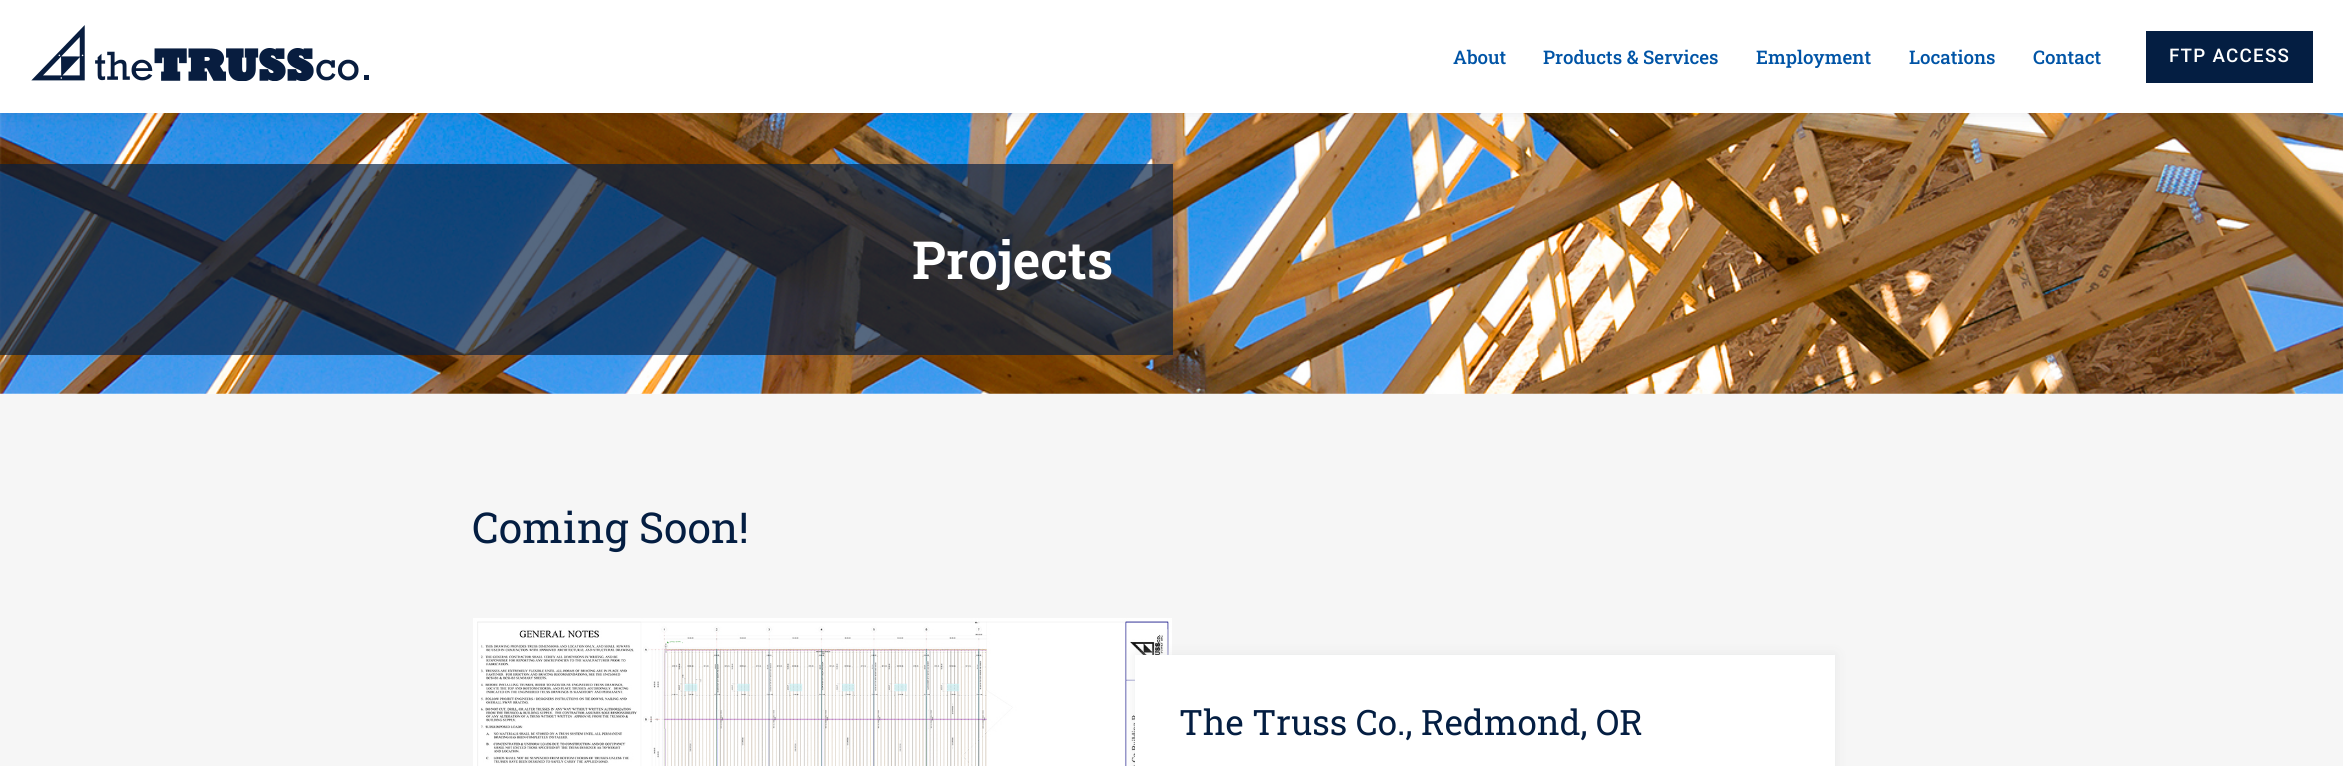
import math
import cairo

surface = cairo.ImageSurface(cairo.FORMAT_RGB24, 2343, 766)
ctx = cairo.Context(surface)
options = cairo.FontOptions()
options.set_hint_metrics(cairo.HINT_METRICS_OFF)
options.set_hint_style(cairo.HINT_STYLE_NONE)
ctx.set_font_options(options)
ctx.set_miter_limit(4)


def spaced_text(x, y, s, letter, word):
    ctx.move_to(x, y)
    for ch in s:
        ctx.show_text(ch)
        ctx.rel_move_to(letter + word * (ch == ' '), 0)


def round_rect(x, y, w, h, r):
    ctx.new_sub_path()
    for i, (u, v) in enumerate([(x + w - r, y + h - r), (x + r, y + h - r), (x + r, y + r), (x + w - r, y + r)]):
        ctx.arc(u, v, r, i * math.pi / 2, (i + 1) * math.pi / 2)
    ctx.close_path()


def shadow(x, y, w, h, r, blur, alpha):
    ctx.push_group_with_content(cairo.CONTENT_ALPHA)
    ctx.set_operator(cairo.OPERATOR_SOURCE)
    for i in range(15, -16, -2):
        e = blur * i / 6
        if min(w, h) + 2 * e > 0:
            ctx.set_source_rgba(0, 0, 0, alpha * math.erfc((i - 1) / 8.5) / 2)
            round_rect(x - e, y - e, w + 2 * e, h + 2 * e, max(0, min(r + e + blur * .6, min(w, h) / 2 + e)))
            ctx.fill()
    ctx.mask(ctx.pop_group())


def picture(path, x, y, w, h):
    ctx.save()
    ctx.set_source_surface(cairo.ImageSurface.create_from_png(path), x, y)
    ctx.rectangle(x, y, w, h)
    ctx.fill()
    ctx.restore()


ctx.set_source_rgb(1, 1, 1)
ctx.paint()
picture("img2.png", 0, 113, 2343, 281)
ctx.set_source_rgb(0, 0, 0.078)
shadow(0, 0, 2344, 113, 0, 7.5, 0.1)
ctx.set_source_rgb(1, 1, 1)
ctx.rectangle(0, 0, 2343, 113)
ctx.fill()
picture("img1.png", 31, 25, 338, 56)
ctx.select_font_face("Roboto Slab Medium")
ctx.set_font_size(18.75)
ctx.set_source_rgb(0, 0.329, 0.651)
ctx.move_to(1453, 64)
ctx.show_text("About")
ctx.move_to(1543, 64)
ctx.show_text("Products & Services")
ctx.move_to(1756, 64)
ctx.show_text("Employment")
ctx.move_to(1909, 64)
ctx.show_text("Locations")
ctx.move_to(2033, 64)
ctx.show_text("Contact")
ctx.set_source_rgb(0.016, 0.118, 0.259)
ctx.rectangle(2146, 31, 167, 52)
ctx.fill()
ctx.select_font_face("Roboto Medium")
ctx.set_source_rgb(1, 1, 1)
spaced_text(2169, 62, "FTP ACCESS", 1.25, 0)
ctx.set_source_rgba(0.016, 0.118, 0.259, 0.67)
ctx.rectangle(0, 164, 1173, 191)
ctx.fill()
ctx.select_font_face("Roboto Slab SemiBold")
ctx.set_font_size(52.5)
ctx.set_source_rgb(1, 1, 1)
ctx.move_to(912, 279)
ctx.show_text("Projects")
ctx.set_source_rgb(0.961, 0.961, 0.961)
ctx.rectangle(0, 394, 2343, 372)
ctx.fill()
ctx.select_font_face("Roboto Slab")
ctx.set_font_size(42.5)
ctx.set_source_rgb(0.016, 0.118, 0.259)
ctx.move_to(472, 543)
ctx.show_text("Coming Soon!")
picture("img3.png", 473, 618, 699, 148)
ctx.set_source_rgb(0.847, 0.863, 0.859)
shadow(1135, 655, 700, 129, 0, 6, 0.52)
ctx.set_source_rgb(1, 1, 1)
ctx.rectangle(1135, 655, 700, 111)
ctx.fill()
ctx.set_font_size(35)
ctx.set_source_rgb(0.016, 0.118, 0.259)
ctx.move_to(1179, 735)
ctx.show_text("The Truss Co., Redmond, OR")
surface.write_to_png("page.png")
